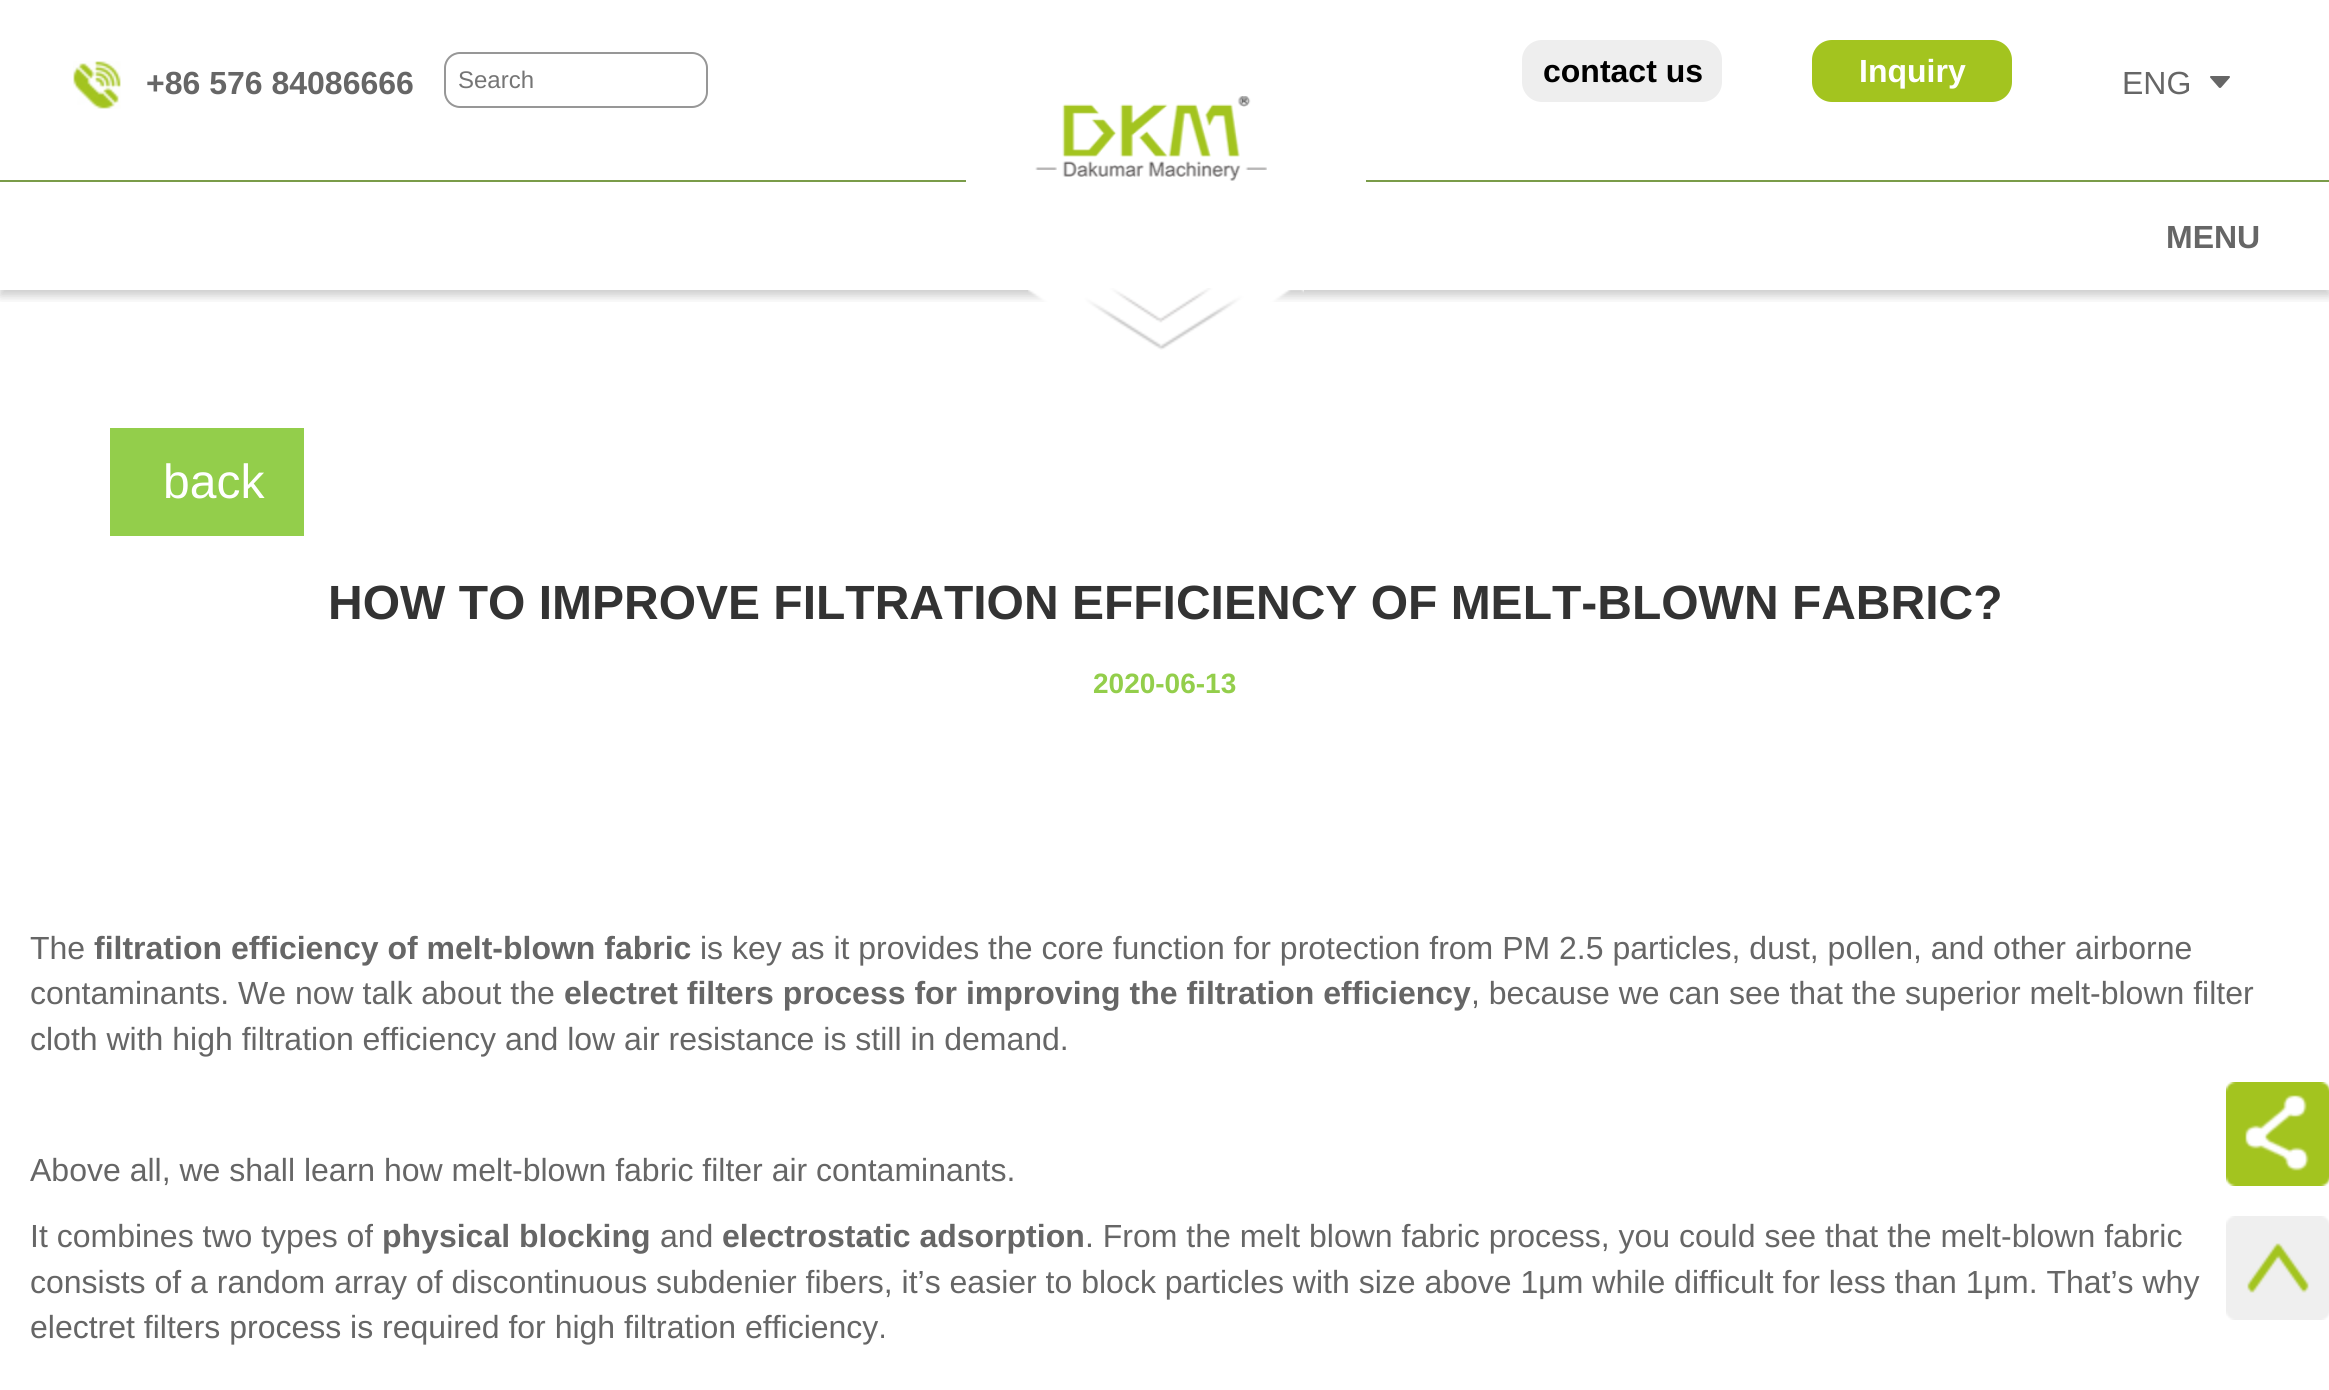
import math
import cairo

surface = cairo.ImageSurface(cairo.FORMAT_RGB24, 2329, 1390)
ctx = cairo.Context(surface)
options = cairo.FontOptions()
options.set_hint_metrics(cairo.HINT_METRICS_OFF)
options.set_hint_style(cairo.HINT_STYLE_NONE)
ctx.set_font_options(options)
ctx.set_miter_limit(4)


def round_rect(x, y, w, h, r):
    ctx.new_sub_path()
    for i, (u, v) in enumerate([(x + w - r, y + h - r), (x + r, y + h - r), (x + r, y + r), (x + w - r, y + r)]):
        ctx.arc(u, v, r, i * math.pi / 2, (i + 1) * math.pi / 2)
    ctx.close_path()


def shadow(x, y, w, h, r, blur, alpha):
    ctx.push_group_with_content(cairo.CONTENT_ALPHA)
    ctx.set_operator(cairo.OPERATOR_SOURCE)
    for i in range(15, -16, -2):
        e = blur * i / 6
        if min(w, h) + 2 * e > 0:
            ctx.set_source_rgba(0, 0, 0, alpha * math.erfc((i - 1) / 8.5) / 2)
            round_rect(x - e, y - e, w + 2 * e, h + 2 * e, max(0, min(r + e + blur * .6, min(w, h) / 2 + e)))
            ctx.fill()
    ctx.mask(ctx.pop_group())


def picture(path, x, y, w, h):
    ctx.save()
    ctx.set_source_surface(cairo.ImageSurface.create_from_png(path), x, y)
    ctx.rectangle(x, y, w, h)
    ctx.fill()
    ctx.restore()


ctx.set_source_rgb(1, 1, 1)
ctx.paint()
ctx.save()
ctx.rectangle(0, 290, 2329, 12)
ctx.clip()
ctx.set_source_rgb(0, 0, 0)
shadow(0, 6, 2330, 290, 0, 5, 0.2)
ctx.restore()
picture("img1.png", 73, 61, 48, 48)
ctx.select_font_face("Liberation Sans", cairo.FONT_SLANT_NORMAL, cairo.FONT_WEIGHT_BOLD)
ctx.set_font_size(32)
ctx.set_source_rgb(0.4, 0.4, 0.4)
ctx.move_to(146, 94)
ctx.show_text("+86 576 84086666")
round_rect(445, 53, 262, 54, 15)
ctx.set_source_rgb(0.592, 0.592, 0.592)
ctx.stroke()
ctx.select_font_face("Liberation Sans")
ctx.set_font_size(24)
ctx.set_source_rgb(0.459, 0.459, 0.459)
ctx.move_to(458, 88)
ctx.show_text("Search")
ctx.set_source_rgb(0.933, 0.933, 0.933)
round_rect(1522, 40, 200, 62, 20)
ctx.fill()
ctx.select_font_face("Liberation Sans", cairo.FONT_SLANT_NORMAL, cairo.FONT_WEIGHT_BOLD)
ctx.set_font_size(32)
ctx.set_source_rgb(0, 0, 0)
ctx.move_to(1543, 82)
ctx.show_text("contact us")
ctx.set_source_rgb(0.639, 0.769, 0.122)
round_rect(1812, 40, 200, 62, 20)
ctx.fill()
ctx.set_source_rgb(1, 1, 1)
ctx.move_to(1859, 82)
ctx.show_text("Inquiry")
ctx.select_font_face("Liberation Sans")
ctx.set_source_rgb(0.4, 0.4, 0.4)
ctx.move_to(2122, 94)
ctx.show_text("ENG")
picture("img2.png", 2210, 76, 20, 12)
ctx.set_source_rgb(0.478, 0.612, 0.286)
ctx.rectangle(0, 180, 2329, 2)
ctx.fill()
ctx.set_source_rgb(1, 1, 1)
ctx.rectangle(966, 180, 400, 2)
ctx.fill()
picture("img3.png", 1035, 96, 232, 85)
ctx.select_font_face("Liberation Sans", cairo.FONT_SLANT_NORMAL, cairo.FONT_WEIGHT_BOLD)
ctx.set_source_rgb(0.4, 0.4, 0.4)
ctx.move_to(2166, 248)
ctx.show_text("MENU")
picture("img4.png", 1028, 288, 276, 62)
ctx.set_source_rgb(0.576, 0.808, 0.294)
ctx.rectangle(110, 428, 194, 108)
ctx.fill()
ctx.select_font_face("Liberation Sans")
ctx.set_font_size(48)
ctx.set_source_rgb(1, 1, 1)
ctx.move_to(163, 498)
ctx.show_text("back")
ctx.select_font_face("Liberation Sans", cairo.FONT_SLANT_NORMAL, cairo.FONT_WEIGHT_BOLD)
ctx.set_source_rgb(0.2, 0.2, 0.2)
ctx.move_to(328, 619)
ctx.show_text("HOW TO IMPROVE FILTRATION EFFICIENCY OF MELT-BLOWN FABRIC?")
ctx.set_font_size(28)
ctx.set_source_rgb(0.576, 0.808, 0.294)
ctx.move_to(1093, 693)
ctx.show_text("2020-06-13")
ctx.select_font_face("Liberation Sans")
ctx.set_font_size(32)
ctx.set_source_rgb(0.4, 0.4, 0.4)
ctx.move_to(30, 959)
ctx.show_text("The")
ctx.select_font_face("Liberation Sans", cairo.FONT_SLANT_NORMAL, cairo.FONT_WEIGHT_BOLD)
ctx.move_to(94, 959)
ctx.show_text("filtration efficiency of melt-blown fabric")
ctx.select_font_face("Liberation Sans")
ctx.move_to(700, 959)
ctx.show_text("is key as it provides the core function for protection from PM 2.5 particles, dust, pollen, and other airborne")
ctx.move_to(30, 1004)
ctx.show_text("contaminants. We now talk about the")
ctx.select_font_face("Liberation Sans", cairo.FONT_SLANT_NORMAL, cairo.FONT_WEIGHT_BOLD)
ctx.move_to(564, 1004)
ctx.show_text("electret filters process for improving the filtration efficiency")
ctx.select_font_face("Liberation Sans")
ctx.move_to(1471, 1004)
ctx.show_text(", because we can see that the superior melt-blown filter")
ctx.move_to(30, 1050)
ctx.show_text("cloth with high filtration efficiency and low air resistance is still in demand.")
ctx.move_to(30, 1181)
ctx.show_text("Above all, we shall learn how melt-blown fabric filter air contaminants.")
ctx.move_to(30, 1247)
ctx.show_text("It combines two types of")
ctx.select_font_face("Liberation Sans", cairo.FONT_SLANT_NORMAL, cairo.FONT_WEIGHT_BOLD)
ctx.move_to(382, 1247)
ctx.show_text("physical blocking")
ctx.select_font_face("Liberation Sans")
ctx.move_to(660, 1247)
ctx.show_text("and")
ctx.select_font_face("Liberation Sans", cairo.FONT_SLANT_NORMAL, cairo.FONT_WEIGHT_BOLD)
ctx.move_to(722, 1247)
ctx.show_text("electrostatic adsorption")
ctx.select_font_face("Liberation Sans")
ctx.move_to(1085, 1247)
ctx.show_text(". From the melt blown fabric process, you could see that the melt-blown fabric")
ctx.move_to(30, 1293)
ctx.show_text("consists of a random array of discontinuous subdenier fibers, it’s easier to block particles with size above 1μm while difficult for less than 1μm. That’s why")
ctx.move_to(30, 1338)
ctx.show_text("electret filters process is required for high filtration efficiency.")
picture("img5.png", 2226, 1082, 103, 104)
picture("img6.png", 2226, 1216, 103, 104)
surface.write_to_png("page.png")
